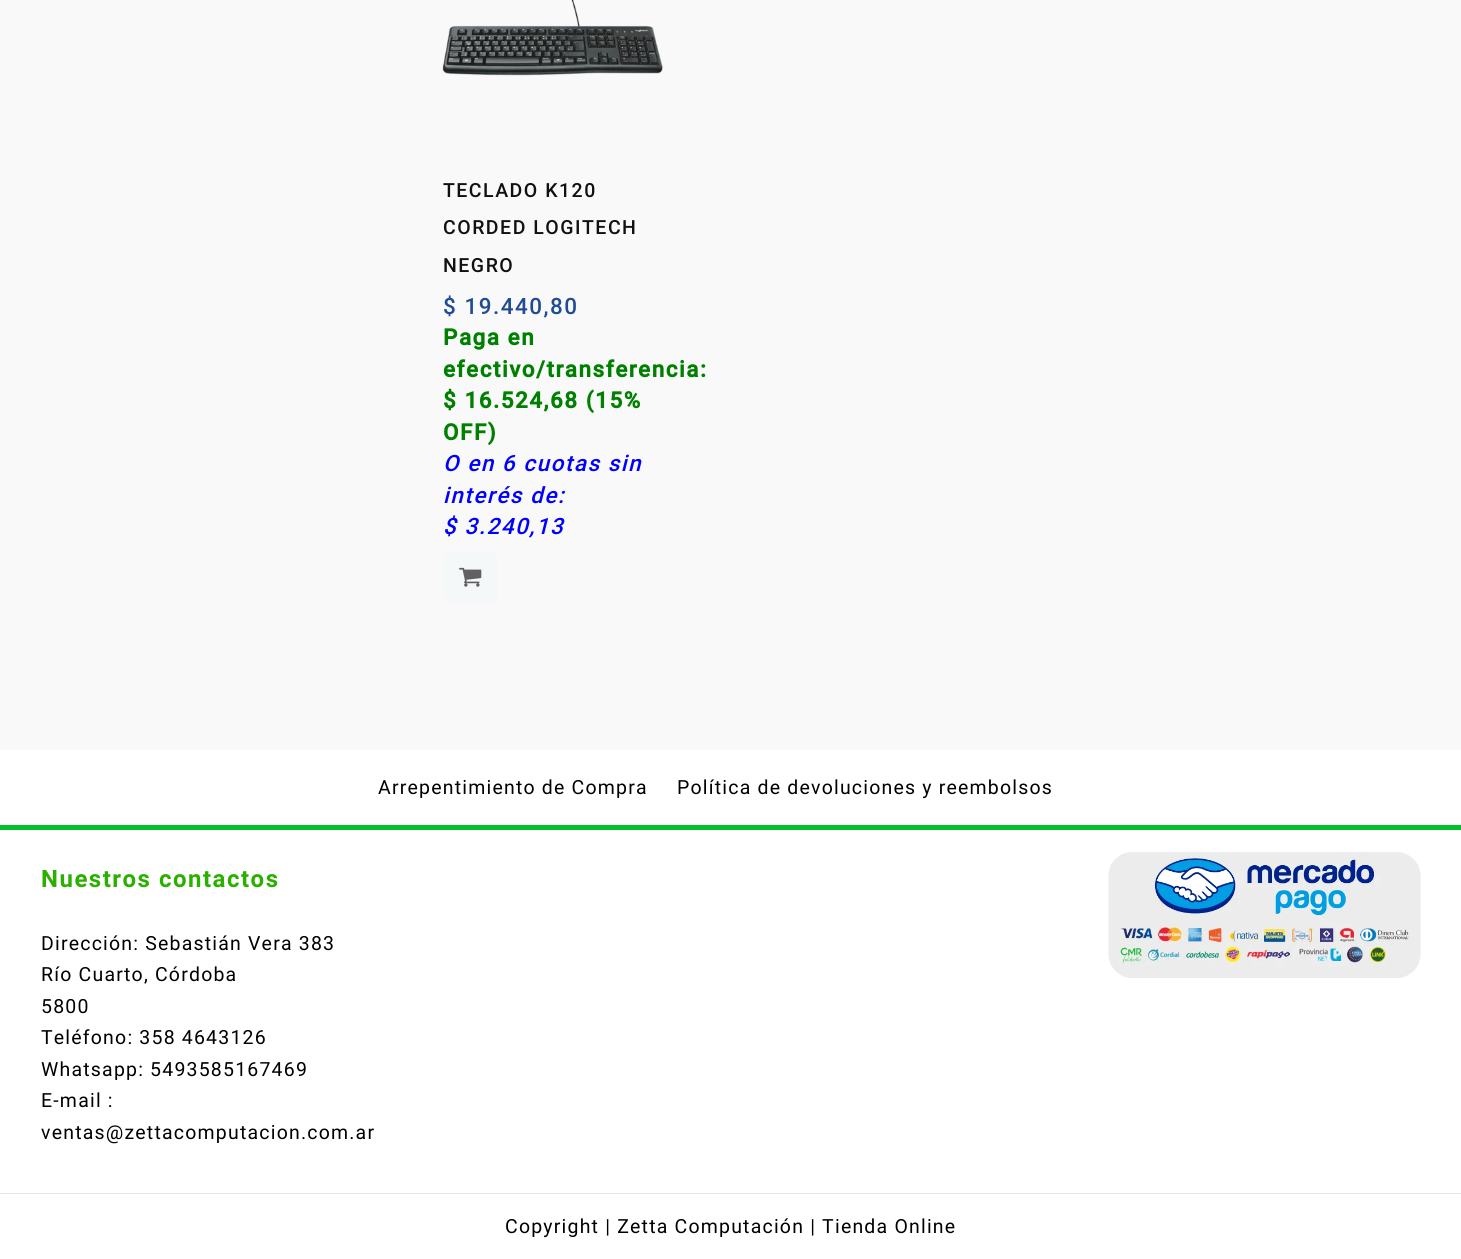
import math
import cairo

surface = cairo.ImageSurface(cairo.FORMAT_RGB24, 1461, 1259)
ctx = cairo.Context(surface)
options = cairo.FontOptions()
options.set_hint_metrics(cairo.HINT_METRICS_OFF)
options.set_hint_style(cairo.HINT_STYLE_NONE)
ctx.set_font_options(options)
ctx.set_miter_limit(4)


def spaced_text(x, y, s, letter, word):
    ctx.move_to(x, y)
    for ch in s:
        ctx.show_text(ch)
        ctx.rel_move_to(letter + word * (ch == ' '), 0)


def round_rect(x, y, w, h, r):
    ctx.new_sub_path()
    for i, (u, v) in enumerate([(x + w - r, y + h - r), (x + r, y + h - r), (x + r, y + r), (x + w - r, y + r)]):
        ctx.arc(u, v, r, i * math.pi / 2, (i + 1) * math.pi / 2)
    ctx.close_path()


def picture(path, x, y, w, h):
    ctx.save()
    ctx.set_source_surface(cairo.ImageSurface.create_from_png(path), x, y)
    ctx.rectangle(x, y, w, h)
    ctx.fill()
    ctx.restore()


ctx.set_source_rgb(0.976, 0.976, 0.976)
ctx.paint()
picture("img1.png", 442, 0, 221, 76)
ctx.select_font_face("Roboto Medium")
ctx.set_font_size(19.5)
ctx.set_source_rgb(0.067, 0.067, 0.067)
spaced_text(443, 197, "TECLADO K120", 1.5, 0)
spaced_text(443, 234, "CORDED LOGITECH", 1.5, 0)
spaced_text(443, 272, "NEGRO", 1.5, 0)
ctx.set_font_size(22.5)
ctx.set_source_rgb(0.122, 0.298, 0.58)
spaced_text(443, 314, "$ 19.440,80", 1.5, 0)
ctx.select_font_face("Roboto", cairo.FONT_SLANT_NORMAL, cairo.FONT_WEIGHT_BOLD)
ctx.set_source_rgb(0, 0.502, 0)
spaced_text(443, 345, "Paga en", 1.5, 0)
spaced_text(443, 377, "efectivo/transferencia:", 1.5, 0)
spaced_text(443, 408, "$ 16.524,68 (15%", 1.5, 0)
spaced_text(443, 440, "OFF)", 1.5, 0)
ctx.select_font_face("Roboto Medium", cairo.FONT_SLANT_ITALIC)
ctx.set_source_rgb(0, 0, 1)
spaced_text(443, 471, "O en 6 cuotas sin", 1.5, 0)
spaced_text(443, 503, "interés de:", 1.5, 0)
spaced_text(443, 534, "$ 3.240,13", 1.5, 0)
ctx.set_source_rgb(0.957, 0.969, 0.976)
round_rect(444, 551, 53, 52, 5)
ctx.fill()
picture("img2.png", 459, 567, 23, 20)
ctx.set_source_rgb(0, 0.749, 0.173)
ctx.rectangle(0, 825, 1461, 5)
ctx.fill()
ctx.set_source_rgb(1, 1, 1)
ctx.rectangle(0, 750, 1461, 75)
ctx.fill()
ctx.select_font_face("Roboto")
ctx.set_font_size(19.5)
ctx.set_source_rgb(0, 0, 0)
spaced_text(378, 794, "Arrepentimiento de Compra", 1.2, 0)
spaced_text(677, 794, "Política de devoluciones y reembolsos", 1.2, 0)
ctx.set_source_rgb(1, 1, 1)
ctx.rectangle(0, 830, 1461, 363)
ctx.fill()
ctx.select_font_face("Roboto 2", cairo.FONT_SLANT_NORMAL, cairo.FONT_WEIGHT_BOLD)
ctx.set_font_size(24)
ctx.set_source_rgb(0.169, 0.686, 0)
spaced_text(41, 887, "Nuestros contactos", 1.5, 0)
ctx.select_font_face("Roboto")
ctx.set_font_size(19.5)
ctx.set_source_rgb(0, 0, 0)
spaced_text(41, 950, "Dirección: Sebastián Vera 383", 1.2, 0)
spaced_text(41, 981, "Río Cuarto, Córdoba", 1.2, 0)
spaced_text(41, 1013, "5800", 1.2, 0)
spaced_text(41, 1044, "Teléfono: 358 4643126", 1.2, 0)
spaced_text(41, 1076, "Whatsapp: 5493585167469", 1.2, 0)
spaced_text(41, 1107, "E-mail :", 1.2, 0)
spaced_text(41, 1139, "ventas@zettacomputacion.com.ar", 1.2, 0)
picture("img3.png", 1108, 852, 313, 126)
ctx.set_source_rgb(0.91, 0.91, 0.91)
ctx.rectangle(0, 1193, 1461, 1)
ctx.fill()
ctx.set_source_rgb(1, 1, 1)
ctx.rectangle(0, 1194, 1461, 65)
ctx.fill()
ctx.set_source_rgb(0, 0, 0)
spaced_text(505, 1233, "Copyright | Zetta Computación | Tienda Online", 1.2, 0)
surface.write_to_png("page.png")
